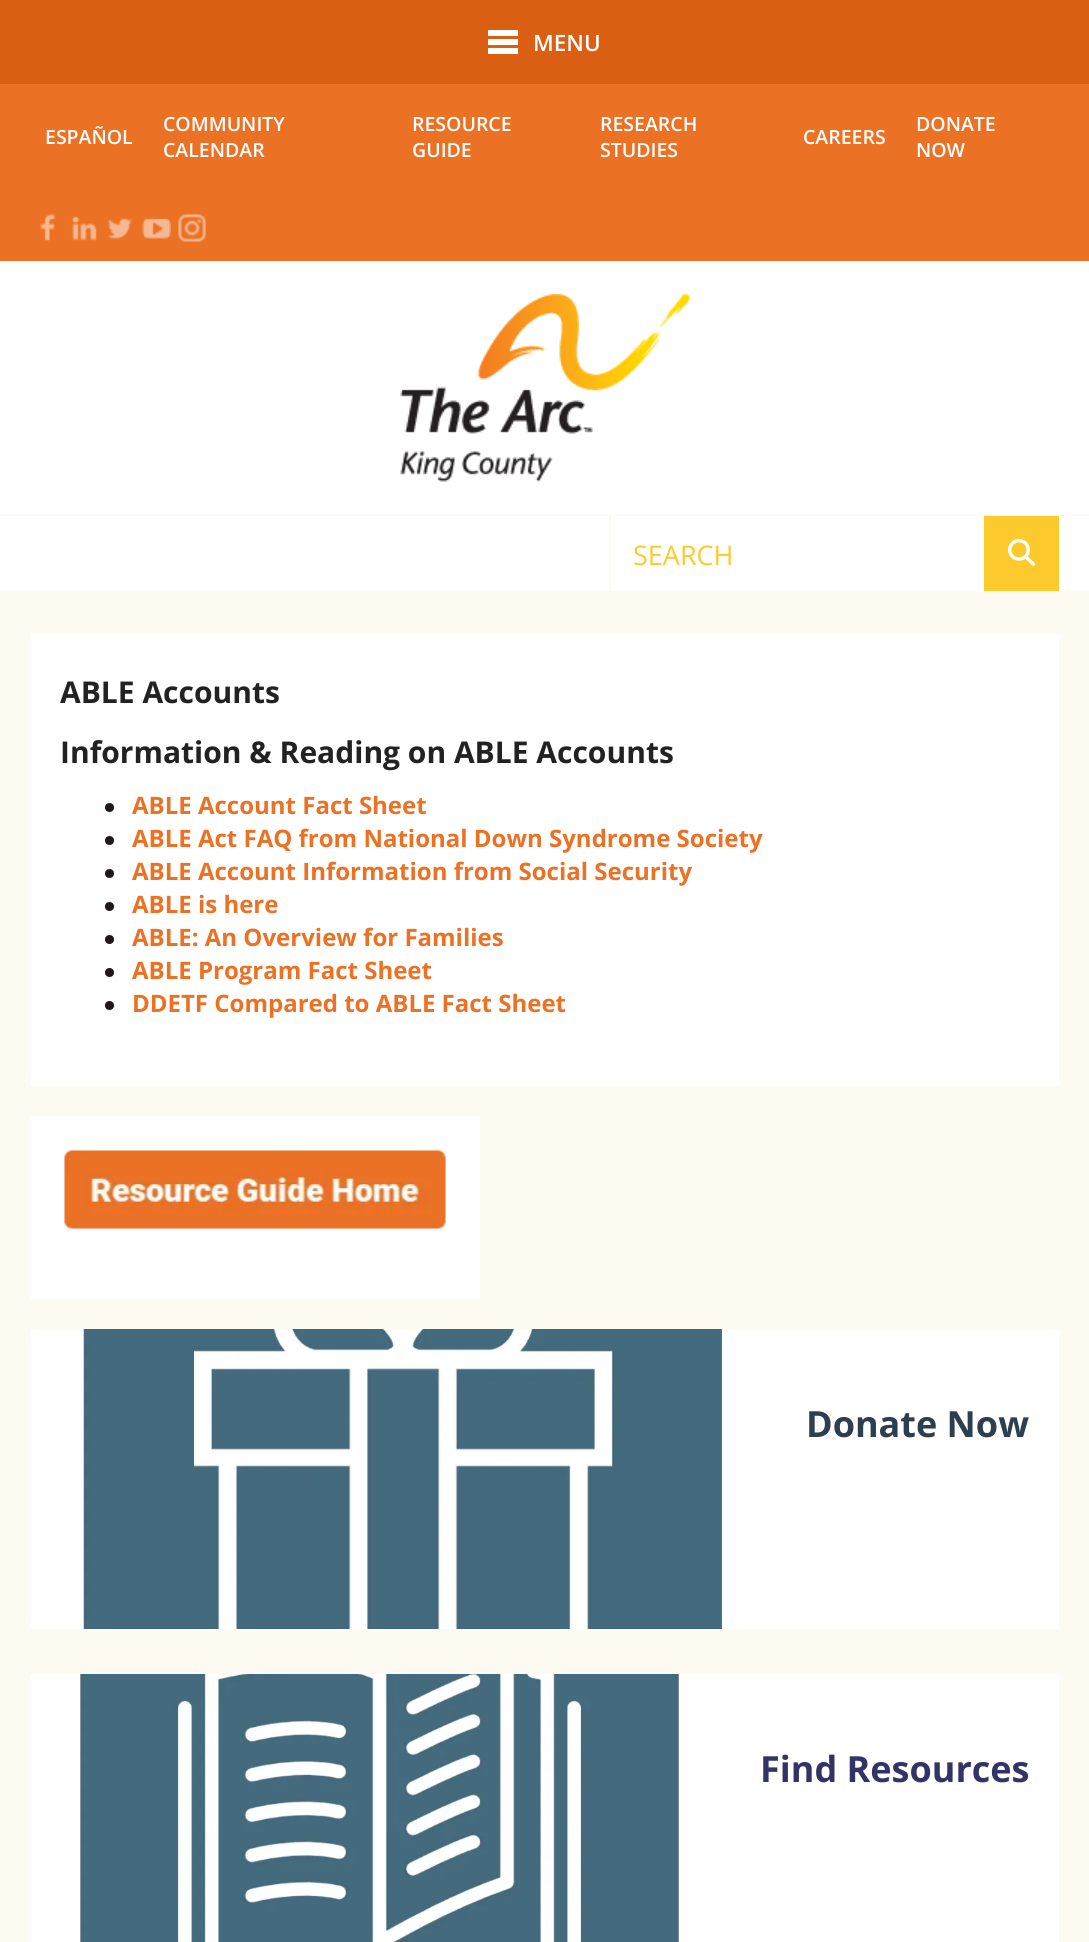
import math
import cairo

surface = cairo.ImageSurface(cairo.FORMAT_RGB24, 1089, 1942)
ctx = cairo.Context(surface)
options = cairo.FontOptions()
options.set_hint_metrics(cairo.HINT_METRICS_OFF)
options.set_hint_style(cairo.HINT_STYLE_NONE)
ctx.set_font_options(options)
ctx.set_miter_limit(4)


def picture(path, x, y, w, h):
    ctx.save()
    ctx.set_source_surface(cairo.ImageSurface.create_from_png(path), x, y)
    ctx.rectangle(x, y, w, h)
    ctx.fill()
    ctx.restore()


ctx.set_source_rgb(0.918, 0.443, 0.145)
ctx.paint()
ctx.set_source_rgb(0.855, 0.373, 0.071)
ctx.rectangle(0, 0, 1089, 84)
ctx.fill()
ctx.set_source_rgb(1, 1, 1)
ctx.rectangle(488, 30, 30, 6)
ctx.fill()
ctx.rectangle(488, 39, 30, 6)
ctx.fill()
ctx.rectangle(488, 48, 30, 6)
ctx.fill()
ctx.select_font_face("Open Sans SemiBold")
ctx.set_font_size(22.5)
ctx.move_to(533, 51)
ctx.show_text("MENU")
ctx.set_font_size(19.5)
ctx.move_to(45, 144)
ctx.show_text("ESPAÑOL")
ctx.move_to(163, 131)
ctx.show_text("COMMUNITY")
ctx.move_to(163, 157)
ctx.show_text("CALENDAR")
ctx.move_to(412, 131)
ctx.show_text("RESOURCE")
ctx.move_to(412, 157)
ctx.show_text("GUIDE")
ctx.move_to(600, 131)
ctx.show_text("RESEARCH")
ctx.move_to(600, 157)
ctx.show_text("STUDIES")
ctx.move_to(803, 144)
ctx.show_text("CAREERS")
ctx.move_to(916, 131)
ctx.show_text("DONATE")
ctx.move_to(916, 157)
ctx.show_text("NOW")
picture("img1.png", 40, 214, 16, 27)
picture("img2.png", 71, 216, 26, 25)
picture("img3.png", 108, 218, 24, 21)
picture("img4.png", 142, 218, 29, 21)
picture("img5.png", 178, 214, 28, 28)
ctx.rectangle(0, 261, 1089, 254)
ctx.fill()
ctx.set_source_rgb(0.992, 0.98, 0.945)
ctx.rectangle(0, 515, 1089, 1)
ctx.fill()
picture("img6.png", 400, 294, 290, 188)
ctx.set_source_rgb(1, 1, 1)
ctx.rectangle(0, 516, 1089, 75)
ctx.fill()
ctx.set_source_rgb(0.992, 0.98, 0.945)
ctx.rectangle(609, 516, 2, 75)
ctx.fill()
ctx.select_font_face("Open Sans")
ctx.set_font_size(27)
ctx.set_source_rgb(0.992, 0.792, 0.18)
ctx.move_to(633, 565)
ctx.show_text("SEARCH")
ctx.rectangle(984, 516, 75, 75)
ctx.fill()
picture("img7.png", 1008, 538, 27, 28)
ctx.set_source_rgb(0.992, 0.98, 0.945)
ctx.rectangle(0, 591, 1089, 1351)
ctx.fill()
ctx.set_source_rgb(1, 1, 1)
ctx.rectangle(30, 633, 1029, 453)
ctx.fill()
ctx.select_font_face("Open Sans", cairo.FONT_SLANT_NORMAL, cairo.FONT_WEIGHT_BOLD)
ctx.set_font_size(30)
ctx.set_source_rgb(0.133, 0.133, 0.133)
ctx.move_to(60, 703)
ctx.show_text("ABLE Accounts")
ctx.move_to(60, 763)
ctx.show_text("Information & Reading on ABLE Accounts")
ctx.set_source_rgb(0.122, 0.094, 0.098)
ctx.new_path()
ctx.arc(109.5, 807.5, 4.5, 0, 2 * math.pi)
ctx.fill()
ctx.set_font_size(24)
ctx.set_source_rgb(0.918, 0.443, 0.145)
ctx.move_to(132, 814)
ctx.show_text("ABLE Account Fact Sheet")
ctx.set_source_rgb(0.122, 0.094, 0.098)
ctx.new_path()
ctx.arc(109.5, 840.5, 4.5, 0, 2 * math.pi)
ctx.fill()
ctx.set_source_rgb(0.918, 0.443, 0.145)
ctx.move_to(132, 847)
ctx.show_text("ABLE Act FAQ from National Down Syndrome Society")
ctx.set_source_rgb(0.122, 0.094, 0.098)
ctx.new_path()
ctx.arc(109.5, 873.5, 4.5, 0, 2 * math.pi)
ctx.fill()
ctx.set_source_rgb(0.918, 0.443, 0.145)
ctx.move_to(132, 880)
ctx.show_text("ABLE Account Information from Social Security")
ctx.set_source_rgb(0.122, 0.094, 0.098)
ctx.new_path()
ctx.arc(109.5, 906.5, 4.5, 0, 2 * math.pi)
ctx.fill()
ctx.set_source_rgb(0.918, 0.443, 0.145)
ctx.move_to(132, 913)
ctx.show_text("ABLE is here")
ctx.set_source_rgb(0.122, 0.094, 0.098)
ctx.new_path()
ctx.arc(109.5, 939.5, 4.5, 0, 2 * math.pi)
ctx.fill()
ctx.set_source_rgb(0.918, 0.443, 0.145)
ctx.move_to(132, 946)
ctx.show_text("ABLE: An Overview for Families")
ctx.set_source_rgb(0.122, 0.094, 0.098)
ctx.new_path()
ctx.arc(109.5, 972.5, 4.5, 0, 2 * math.pi)
ctx.fill()
ctx.set_source_rgb(0.918, 0.443, 0.145)
ctx.move_to(132, 979)
ctx.show_text("ABLE Program Fact Sheet")
ctx.set_source_rgb(0.122, 0.094, 0.098)
ctx.new_path()
ctx.arc(109.5, 1005.5, 4.5, 0, 2 * math.pi)
ctx.fill()
ctx.set_source_rgb(0.918, 0.443, 0.145)
ctx.move_to(132, 1012)
ctx.show_text("DDETF Compared to ABLE Fact Sheet")
ctx.set_source_rgb(1, 1, 1)
ctx.rectangle(30, 1116, 450, 183)
ctx.fill()
picture("img8.png", 64, 1150, 382, 79)
ctx.rectangle(30, 1329, 1029, 300)
ctx.fill()
picture("img9.png", 83, 1329, 639, 300)
ctx.set_font_size(36)
ctx.set_source_rgb(0.173, 0.243, 0.314)
ctx.move_to(806, 1437)
ctx.show_text("Donate Now")
ctx.set_source_rgb(1, 1, 1)
ctx.rectangle(30, 1674, 1029, 268)
ctx.fill()
picture("img10.png", 80, 1674, 599, 268)
ctx.set_source_rgb(0.2, 0.2, 0.4)
ctx.move_to(760, 1782)
ctx.show_text("Find Resources")
surface.write_to_png("page.png")
